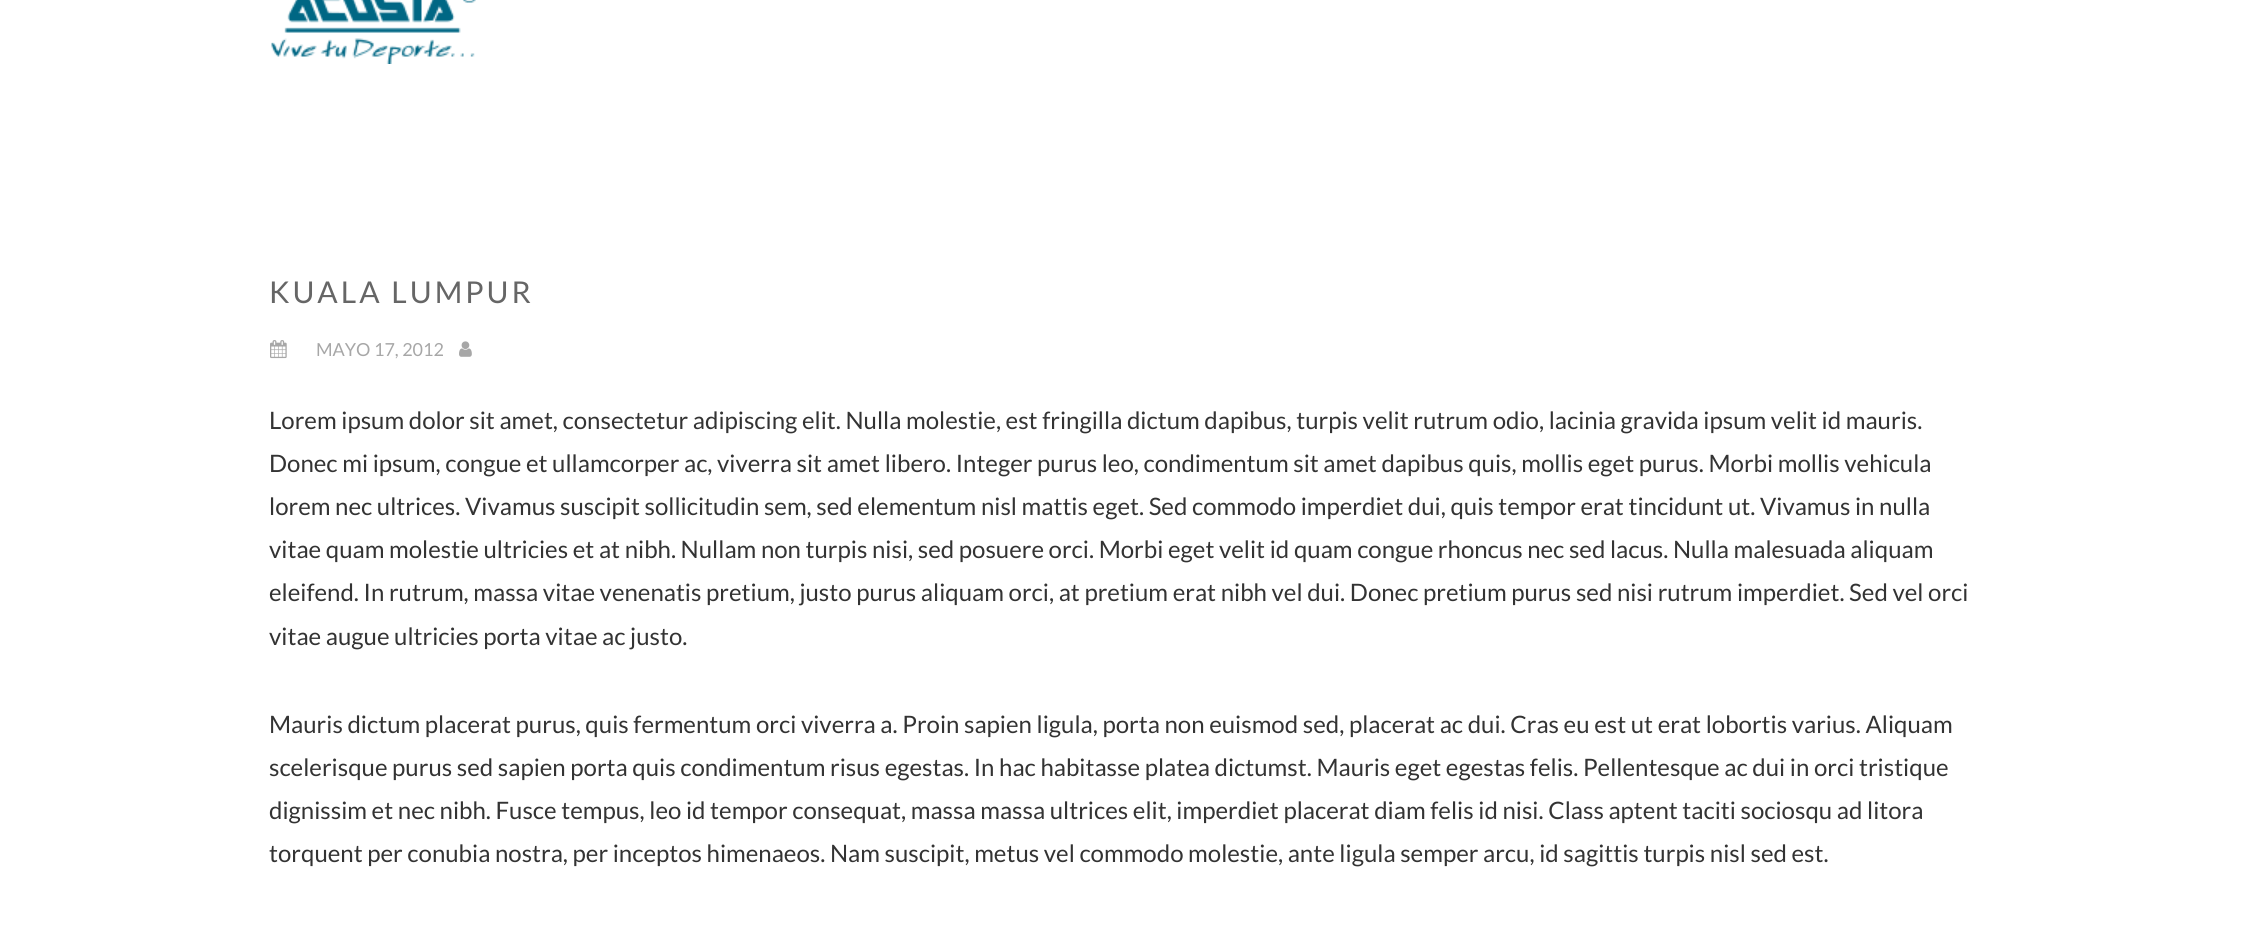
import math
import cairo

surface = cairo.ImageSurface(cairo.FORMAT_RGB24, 2248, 926)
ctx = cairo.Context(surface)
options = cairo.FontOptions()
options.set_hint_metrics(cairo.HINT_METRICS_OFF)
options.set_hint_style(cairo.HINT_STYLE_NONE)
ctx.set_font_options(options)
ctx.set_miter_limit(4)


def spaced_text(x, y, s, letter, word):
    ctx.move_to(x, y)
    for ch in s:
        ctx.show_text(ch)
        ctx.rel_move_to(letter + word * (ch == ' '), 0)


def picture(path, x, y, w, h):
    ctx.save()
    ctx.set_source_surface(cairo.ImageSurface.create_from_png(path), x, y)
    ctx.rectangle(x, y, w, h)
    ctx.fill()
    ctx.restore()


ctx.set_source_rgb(1, 1, 1)
ctx.paint()
picture("img1.png", 271, 0, 205, 64)
ctx.select_font_face("Lato")
ctx.set_font_size(30)
ctx.set_source_rgb(0.4, 0.4, 0.4)
spaced_text(269, 303, "KUALA LUMPUR", 3, 0)
picture("img2.png", 270, 340, 17, 19)
ctx.set_font_size(18)
ctx.set_source_rgb(0.655, 0.655, 0.655)
ctx.move_to(316, 356)
ctx.show_text("MAYO 17, 2012")
picture("img3.png", 459, 341, 13, 16)
ctx.set_font_size(24)
ctx.set_source_rgb(0.2, 0.2, 0.2)
ctx.move_to(269, 429)
ctx.show_text("Lorem ipsum dolor sit amet, consectetur adipiscing elit. Nulla molestie, est fringilla dictum dapibus, turpis velit rutrum odio, lacinia gravida ipsum velit id mauris.")
ctx.move_to(269, 472)
ctx.show_text("Donec mi ipsum, congue et ullamcorper ac, viverra sit amet libero. Integer purus leo, condimentum sit amet dapibus quis, mollis eget purus. Morbi mollis vehicula")
ctx.move_to(269, 515)
ctx.show_text("lorem nec ultrices. Vivamus suscipit sollicitudin sem, sed elementum nisl mattis eget. Sed commodo imperdiet dui, quis tempor erat tincidunt ut. Vivamus in nulla")
ctx.move_to(269, 558)
ctx.show_text("vitae quam molestie ultricies et at nibh. Nullam non turpis nisi, sed posuere orci. Morbi eget velit id quam congue rhoncus nec sed lacus. Nulla malesuada aliquam")
ctx.move_to(269, 601)
ctx.show_text("eleifend. In rutrum, massa vitae venenatis pretium, justo purus aliquam orci, at pretium erat nibh vel dui. Donec pretium purus sed nisi rutrum imperdiet. Sed vel orci")
ctx.move_to(269, 645)
ctx.show_text("vitae augue ultricies porta vitae ac justo.")
ctx.move_to(269, 733)
ctx.show_text("Mauris dictum placerat purus, quis fermentum orci viverra a. Proin sapien ligula, porta non euismod sed, placerat ac dui. Cras eu est ut erat lobortis varius. Aliquam")
ctx.move_to(269, 776)
ctx.show_text("scelerisque purus sed sapien porta quis condimentum risus egestas. In hac habitasse platea dictumst. Mauris eget egestas felis. Pellentesque ac dui in orci tristique")
ctx.move_to(269, 819)
ctx.show_text("dignissim et nec nibh. Fusce tempus, leo id tempor consequat, massa massa ultrices elit, imperdiet placerat diam felis id nisi. Class aptent taciti sociosqu ad litora")
ctx.move_to(269, 862)
ctx.show_text("torquent per conubia nostra, per inceptos himenaeos. Nam suscipit, metus vel commodo molestie, ante ligula semper arcu, id sagittis turpis nisl sed est.")
surface.write_to_png("page.png")
